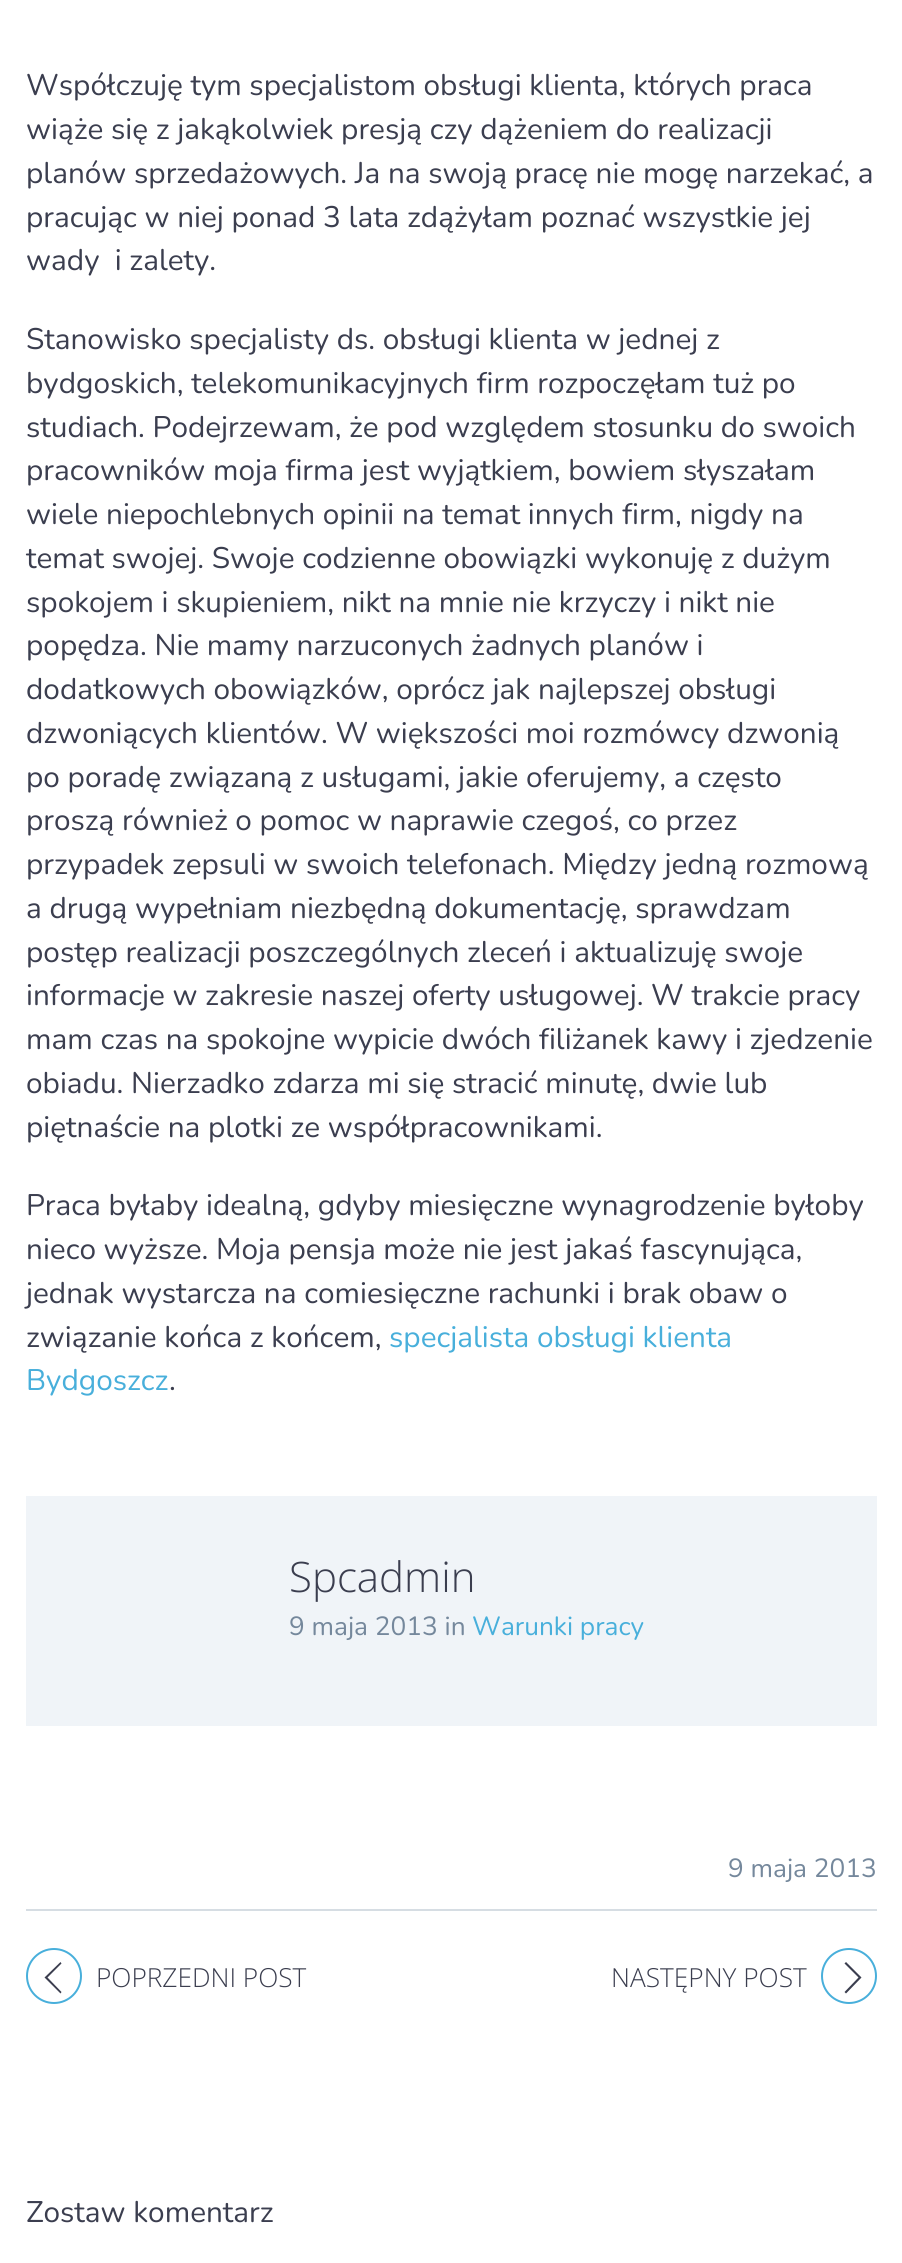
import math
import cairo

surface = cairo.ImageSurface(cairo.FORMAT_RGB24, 902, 2263)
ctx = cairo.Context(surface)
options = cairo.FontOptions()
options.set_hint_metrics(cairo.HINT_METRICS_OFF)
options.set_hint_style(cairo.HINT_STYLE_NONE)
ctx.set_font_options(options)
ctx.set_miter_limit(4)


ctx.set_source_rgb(1, 1, 1)
ctx.paint()
ctx.select_font_face("Nunito ExtraLight")
ctx.set_font_size(29.75)
ctx.set_source_rgb(0.231, 0.243, 0.31)
ctx.move_to(26, 95)
ctx.show_text("Współczuję tym specjalistom obsługi klienta, których praca")
ctx.move_to(26, 139)
ctx.show_text("wiąże się z jakąkolwiek presją czy dążeniem do realizacji")
ctx.move_to(26, 183)
ctx.show_text("planów sprzedażowych. Ja na swoją pracę nie mogę narzekać, a")
ctx.move_to(26, 227)
ctx.show_text("pracując w niej ponad 3 lata zdążyłam poznać wszystkie jej")
ctx.move_to(26, 270)
ctx.show_text("wady  i zalety.")
ctx.move_to(26, 349)
ctx.show_text("Stanowisko specjalisty ds. obsługi klienta w jednej z")
ctx.move_to(26, 393)
ctx.show_text("bydgoskich, telekomunikacyjnych firm rozpoczęłam tuż po")
ctx.move_to(26, 437)
ctx.show_text("studiach. Podejrzewam, że pod względem stosunku do swoich")
ctx.move_to(26, 480)
ctx.show_text("pracowników moja firma jest wyjątkiem, bowiem słyszałam")
ctx.move_to(26, 524)
ctx.show_text("wiele niepochlebnych opinii na temat innych firm, nigdy na")
ctx.move_to(26, 568)
ctx.show_text("temat swojej. Swoje codzienne obowiązki wykonuję z dużym")
ctx.move_to(26, 612)
ctx.show_text("spokojem i skupieniem, nikt na mnie nie krzyczy i nikt nie")
ctx.move_to(26, 655)
ctx.show_text("popędza. Nie mamy narzuconych żadnych planów i")
ctx.move_to(26, 699)
ctx.show_text("dodatkowych obowiązków, oprócz jak najlepszej obsługi")
ctx.move_to(26, 743)
ctx.show_text("dzwoniących klientów. W większości moi rozmówcy dzwonią")
ctx.move_to(26, 787)
ctx.show_text("po poradę związaną z usługami, jakie oferujemy, a często")
ctx.move_to(26, 830)
ctx.show_text("proszą również o pomoc w naprawie czegoś, co przez")
ctx.move_to(26, 874)
ctx.show_text("przypadek zepsuli w swoich telefonach. Między jedną rozmową")
ctx.move_to(26, 918)
ctx.show_text("a drugą wypełniam niezbędną dokumentację, sprawdzam")
ctx.move_to(26, 962)
ctx.show_text("postęp realizacji poszczególnych zleceń i aktualizuję swoje")
ctx.move_to(26, 1005)
ctx.show_text("informacje w zakresie naszej oferty usługowej. W trakcie pracy")
ctx.move_to(26, 1049)
ctx.show_text("mam czas na spokojne wypicie dwóch filiżanek kawy i zjedzenie")
ctx.move_to(26, 1093)
ctx.show_text("obiadu. Nierzadko zdarza mi się stracić minutę, dwie lub")
ctx.move_to(26, 1137)
ctx.show_text("piętnaście na plotki ze współpracownikami.")
ctx.move_to(26, 1215)
ctx.show_text("Praca byłaby idealną, gdyby miesięczne wynagrodzenie byłoby")
ctx.move_to(26, 1259)
ctx.show_text("nieco wyższe. Moja pensja może nie jest jakaś fascynująca,")
ctx.move_to(26, 1303)
ctx.show_text("jednak wystarcza na comiesięczne rachunki i brak obaw o")
ctx.move_to(26, 1347)
ctx.show_text("związanie końca z końcem,")
ctx.set_source_rgb(0.282, 0.686, 0.859)
ctx.move_to(389, 1347)
ctx.show_text("specjalista obsługi klienta")
ctx.move_to(26, 1390)
ctx.show_text("Bydgoszcz")
ctx.set_source_rgb(0.231, 0.243, 0.31)
ctx.move_to(169, 1390)
ctx.show_text(".")
ctx.set_source_rgb(0.941, 0.957, 0.969)
ctx.rectangle(26, 1496, 851, 230)
ctx.fill()
ctx.select_font_face("Open Sans Light")
ctx.set_font_size(42)
ctx.set_source_rgb(0.231, 0.243, 0.31)
ctx.move_to(289, 1592)
ctx.show_text("Spcadmin")
ctx.select_font_face("Nunito ExtraLight")
ctx.set_font_size(26.25)
ctx.set_source_rgb(0.459, 0.533, 0.612)
ctx.move_to(289, 1635)
ctx.show_text("9 maja 2013 in")
ctx.set_source_rgb(0.282, 0.686, 0.859)
ctx.move_to(472, 1635)
ctx.show_text("Warunki pracy")
ctx.set_source_rgb(0.839, 0.867, 0.89)
ctx.rectangle(26, 1909, 851, 2)
ctx.fill()
ctx.set_source_rgb(0.459, 0.533, 0.612)
ctx.move_to(728, 1877)
ctx.show_text("9 maja 2013")
ctx.new_path()
ctx.arc(54, 1976, 27, 0, 2 * math.pi)
ctx.set_source_rgb(0.282, 0.686, 0.859)
ctx.stroke()
ctx.set_source_rgb(0.231, 0.243, 0.31)
ctx.new_path()
ctx.move_to(60.5, 1993.5)
ctx.line_to(44.5, 1977.5)
ctx.line_to(60.5, 1962)
ctx.line_to(61.5, 1963.5)
ctx.line_to(47.5, 1977.5)
ctx.line_to(61.5, 1992)
ctx.close_path()
ctx.fill()
ctx.select_font_face("Open Sans Light")
ctx.move_to(96, 1987)
ctx.show_text("POPRZEDNI POST")
ctx.move_to(611, 1987)
ctx.show_text("NASTĘPNY POST")
ctx.new_path()
ctx.arc(849, 1976, 27, 0, 2 * math.pi)
ctx.set_source_rgb(0.282, 0.686, 0.859)
ctx.stroke()
ctx.set_source_rgb(0.231, 0.243, 0.31)
ctx.new_path()
ctx.move_to(846, 1962)
ctx.line_to(861.5, 1977.5)
ctx.line_to(846, 1993.5)
ctx.line_to(844.5, 1992)
ctx.line_to(858.5, 1977.5)
ctx.line_to(844.5, 1963.5)
ctx.close_path()
ctx.fill()
ctx.select_font_face("Nunito ExtraLight")
ctx.set_font_size(29.75)
ctx.move_to(26, 2222)
ctx.show_text("Zostaw komentarz")
surface.write_to_png("page.png")
